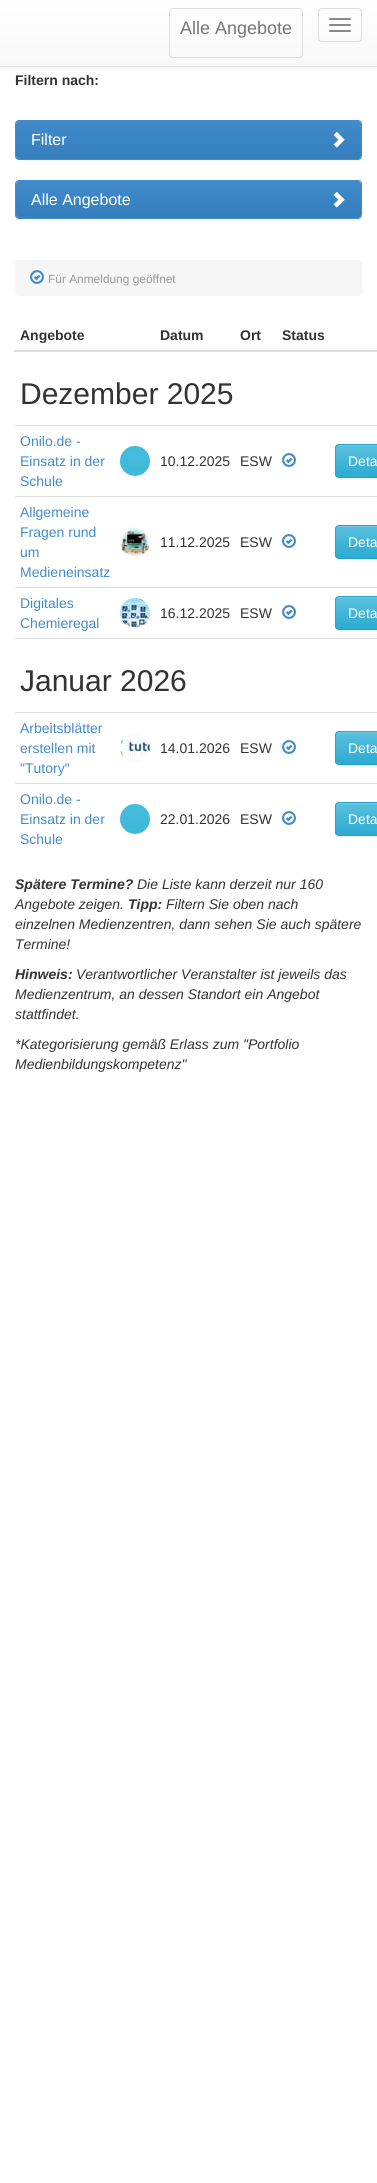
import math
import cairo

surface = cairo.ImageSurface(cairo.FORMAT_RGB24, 377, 2183)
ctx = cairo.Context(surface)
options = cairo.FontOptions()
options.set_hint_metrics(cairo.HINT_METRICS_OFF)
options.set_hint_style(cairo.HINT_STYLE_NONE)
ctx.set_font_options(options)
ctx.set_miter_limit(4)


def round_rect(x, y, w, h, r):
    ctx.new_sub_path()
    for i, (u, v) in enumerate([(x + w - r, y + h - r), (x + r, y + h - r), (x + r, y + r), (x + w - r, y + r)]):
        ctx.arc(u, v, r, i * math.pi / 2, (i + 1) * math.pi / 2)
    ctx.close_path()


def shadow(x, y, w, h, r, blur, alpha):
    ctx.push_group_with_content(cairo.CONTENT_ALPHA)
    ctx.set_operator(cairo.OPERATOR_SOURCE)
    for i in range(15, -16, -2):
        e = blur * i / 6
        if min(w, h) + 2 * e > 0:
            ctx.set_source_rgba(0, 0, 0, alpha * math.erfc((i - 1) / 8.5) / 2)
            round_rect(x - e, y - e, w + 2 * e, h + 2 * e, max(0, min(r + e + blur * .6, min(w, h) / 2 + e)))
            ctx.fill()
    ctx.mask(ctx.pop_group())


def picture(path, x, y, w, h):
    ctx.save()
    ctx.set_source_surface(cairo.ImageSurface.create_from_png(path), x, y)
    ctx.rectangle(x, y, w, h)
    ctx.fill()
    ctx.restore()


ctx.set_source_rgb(1, 1, 1)
ctx.paint()
ctx.set_source_rgb(0, 0, 0)
shadow(0, 1, 377, 67, 0, 2.5, 0.07)
gradient = cairo.LinearGradient(189, 0, 189, 66)
gradient.add_color_stop_rgba(0, 1, 1, 1, 1)
gradient.add_color_stop_rgba(1, 0.973, 0.973, 0.973, 1)
ctx.set_source(gradient)
ctx.rectangle(0, 0, 377, 66)
ctx.fill()
ctx.set_source_rgb(0.906, 0.906, 0.906)
ctx.rectangle(0, 66, 377, 1)
ctx.fill()
round_rect(169.5, 8.5, 133, 49, 3.5)
ctx.set_source_rgb(0.867, 0.867, 0.867)
ctx.set_line_width(1)
ctx.stroke()
ctx.select_font_face("Liberation Sans")
ctx.set_font_size(18)
ctx.set_source_rgb(0.467, 0.467, 0.467)
ctx.move_to(180, 34)
ctx.show_text("Alle Angebote")
round_rect(318.5, 8.5, 43, 33, 3.5)
ctx.set_source_rgb(0.867, 0.867, 0.867)
ctx.stroke()
ctx.set_source_rgb(0.533, 0.533, 0.533)
round_rect(329, 18, 22, 2, 1)
ctx.fill()
round_rect(329, 24, 22, 2, 1)
ctx.fill()
round_rect(329, 30, 22, 2, 1)
ctx.fill()
ctx.select_font_face("Liberation Sans", cairo.FONT_SLANT_NORMAL, cairo.FONT_WEIGHT_BOLD)
ctx.set_font_size(14)
ctx.set_source_rgb(0.2, 0.2, 0.2)
ctx.move_to(15, 85)
ctx.show_text("Filtern nach:")
ctx.set_source_rgb(0, 0, 0)
shadow(15, 121, 347, 40, 4, 1, 0.05)
round_rect(15.5, 120.5, 346, 39, 3.5)
ctx.set_source_rgb(0.259, 0.545, 0.792)
ctx.stroke()
gradient = cairo.LinearGradient(189, 121, 189, 159)
gradient.add_color_stop_rgba(0, 0.259, 0.545, 0.792, 1)
gradient.add_color_stop_rgba(1, 0.208, 0.494, 0.741, 1)
ctx.set_source(gradient)
round_rect(16, 121, 345, 38, 3)
ctx.fill()
ctx.select_font_face("Liberation Sans")
ctx.set_font_size(16)
ctx.set_source_rgb(1, 1, 1)
ctx.move_to(31, 145)
ctx.show_text("Filter")
picture("img1.png", 333, 131, 12, 17)
ctx.set_source_rgb(0, 0, 0)
shadow(15, 181, 347, 39, 4, 1, 0.05)
round_rect(15.5, 180.5, 346, 38, 3.5)
ctx.set_source_rgb(0.259, 0.545, 0.792)
ctx.stroke()
gradient = cairo.LinearGradient(189, 181, 189, 218)
gradient.add_color_stop_rgba(0, 0.259, 0.545, 0.792, 1)
gradient.add_color_stop_rgba(1, 0.208, 0.494, 0.741, 1)
ctx.set_source(gradient)
round_rect(16, 181, 345, 37, 3)
ctx.fill()
ctx.set_source_rgb(1, 1, 1)
ctx.move_to(31, 205)
ctx.show_text("Alle Angebote")
picture("img2.png", 333, 191, 12, 17)
ctx.set_source_rgb(0.961, 0.961, 0.961)
round_rect(15, 260, 347, 36, 4)
ctx.fill()
picture("img3.png", 30, 270, 14, 14)
ctx.set_font_size(11.9)
ctx.set_source_rgb(0.6, 0.6, 0.6)
ctx.move_to(48, 283)
ctx.show_text("Für Anmeldung geöffnet")
ctx.select_font_face("Liberation Sans", cairo.FONT_SLANT_NORMAL, cairo.FONT_WEIGHT_BOLD)
ctx.set_font_size(14)
ctx.set_source_rgb(0.2, 0.2, 0.2)
ctx.move_to(20, 340)
ctx.show_text("Angebote")
ctx.move_to(160, 340)
ctx.show_text("Datum")
ctx.move_to(240, 340)
ctx.show_text("Ort")
ctx.move_to(282, 340)
ctx.show_text("Status")
ctx.set_source_rgb(0.867, 0.867, 0.867)
ctx.rectangle(14, 350, 363, 2)
ctx.fill()
ctx.select_font_face("Liberation Sans")
ctx.set_font_size(30)
ctx.set_source_rgb(0.2, 0.2, 0.2)
ctx.move_to(20, 404)
ctx.show_text("Dezember 2025")
ctx.set_font_size(14)
ctx.set_source_rgb(0.259, 0.545, 0.792)
ctx.move_to(20, 446)
ctx.show_text("Onilo.de -")
ctx.move_to(20, 466)
ctx.show_text("Einsatz in der")
ctx.move_to(20, 486)
ctx.show_text("Schule")
picture("img4.png", 120, 446, 30, 30)
ctx.set_source_rgb(0.2, 0.2, 0.2)
ctx.move_to(160, 466)
ctx.show_text("10.12.2025")
ctx.move_to(240, 466)
ctx.show_text("ESW")
picture("img5.png", 282, 453, 14, 14)
ctx.set_source_rgb(0.867, 0.867, 0.867)
ctx.rectangle(15, 425, 362, 1)
ctx.fill()
ctx.set_source_rgb(0, 0, 0)
shadow(335, 445, 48, 34, 4, 0.5, 0.07)
ctx.save()
round_rect(335, 444, 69, 34, 4)
ctx.clip()
gradient = cairo.LinearGradient(370, 445, 370, 477)
gradient.add_color_stop_rgba(0, 0.357, 0.753, 0.871, 1)
gradient.add_color_stop_rgba(1, 0.165, 0.671, 0.824, 1)
ctx.set_source(gradient)
ctx.rectangle(335, 445, 42, 32)
ctx.fill()
ctx.restore()
ctx.set_source_rgb(0.451, 0.788, 0.89)
ctx.new_path()
ctx.move_to(339, 446)
ctx.line_to(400, 446)
ctx.curve_to(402, 446, 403, 447, 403, 449)
ctx.curve_to(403, 442, 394, 445, 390, 445)
ctx.line_to(349, 445)
ctx.curve_to(345, 445, 336, 442, 336, 449)
ctx.curve_to(336, 447, 337, 446, 339, 446)
ctx.close_path()
ctx.fill()
round_rect(335.5, 444.5, 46, 33, 3.5)
ctx.set_source_rgb(0.157, 0.643, 0.788)
ctx.stroke()
ctx.set_source_rgb(1, 1, 1)
ctx.move_to(348, 466)
ctx.show_text("Deta")
ctx.set_source_rgb(0.259, 0.545, 0.792)
ctx.move_to(20, 517)
ctx.show_text("Allgemeine")
ctx.move_to(20, 537)
ctx.show_text("Fragen rund")
ctx.move_to(20, 557)
ctx.show_text("um")
ctx.move_to(20, 577)
ctx.show_text("Medieneinsatz")
picture("img6.png", 120, 527, 30, 30)
ctx.set_source_rgb(0.2, 0.2, 0.2)
ctx.move_to(160, 547)
ctx.show_text("11.12.2025")
ctx.move_to(240, 547)
ctx.show_text("ESW")
picture("img5.png", 282, 534, 14, 14)
ctx.set_source_rgb(0.867, 0.867, 0.867)
ctx.rectangle(15, 496, 362, 1)
ctx.fill()
ctx.set_source_rgb(0, 0, 0)
shadow(335, 526, 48, 34, 4, 0.5, 0.07)
ctx.save()
round_rect(335, 525, 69, 34, 4)
ctx.clip()
gradient = cairo.LinearGradient(370, 526, 370, 558)
gradient.add_color_stop_rgba(0, 0.357, 0.753, 0.871, 1)
gradient.add_color_stop_rgba(1, 0.165, 0.671, 0.824, 1)
ctx.set_source(gradient)
ctx.rectangle(335, 526, 42, 32)
ctx.fill()
ctx.restore()
ctx.set_source_rgb(0.451, 0.788, 0.89)
ctx.new_path()
ctx.move_to(339, 527)
ctx.line_to(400, 527)
ctx.curve_to(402, 527, 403, 528, 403, 530)
ctx.curve_to(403, 523, 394, 526, 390, 526)
ctx.line_to(349, 526)
ctx.curve_to(345, 526, 336, 523, 336, 530)
ctx.curve_to(336, 528, 337, 527, 339, 527)
ctx.close_path()
ctx.fill()
round_rect(335.5, 525.5, 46, 33, 3.5)
ctx.set_source_rgb(0.157, 0.643, 0.788)
ctx.stroke()
ctx.set_source_rgb(1, 1, 1)
ctx.move_to(348, 547)
ctx.show_text("Deta")
ctx.set_source_rgb(0.259, 0.545, 0.792)
ctx.move_to(20, 608)
ctx.show_text("Digitales")
ctx.move_to(20, 628)
ctx.show_text("Chemieregal")
picture("img7.png", 120, 598, 30, 30)
ctx.set_source_rgb(0.2, 0.2, 0.2)
ctx.move_to(160, 618)
ctx.show_text("16.12.2025")
ctx.move_to(240, 618)
ctx.show_text("ESW")
picture("img5.png", 282, 605, 14, 14)
ctx.set_source_rgb(0.867, 0.867, 0.867)
ctx.rectangle(15, 587, 362, 1)
ctx.fill()
ctx.set_source_rgb(0, 0, 0)
shadow(335, 597, 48, 34, 4, 0.5, 0.07)
ctx.save()
round_rect(335, 596, 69, 34, 4)
ctx.clip()
gradient = cairo.LinearGradient(370, 597, 370, 629)
gradient.add_color_stop_rgba(0, 0.357, 0.753, 0.871, 1)
gradient.add_color_stop_rgba(1, 0.165, 0.671, 0.824, 1)
ctx.set_source(gradient)
ctx.rectangle(335, 597, 42, 32)
ctx.fill()
ctx.restore()
ctx.set_source_rgb(0.451, 0.788, 0.89)
ctx.new_path()
ctx.move_to(339, 598)
ctx.line_to(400, 598)
ctx.curve_to(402, 598, 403, 599, 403, 601)
ctx.curve_to(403, 594, 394, 597, 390, 597)
ctx.line_to(349, 597)
ctx.curve_to(345, 597, 336, 594, 336, 601)
ctx.curve_to(336, 599, 337, 598, 339, 598)
ctx.close_path()
ctx.fill()
round_rect(335.5, 596.5, 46, 33, 3.5)
ctx.set_source_rgb(0.157, 0.643, 0.788)
ctx.stroke()
ctx.set_source_rgb(1, 1, 1)
ctx.move_to(348, 618)
ctx.show_text("Deta")
ctx.set_source_rgb(0.867, 0.867, 0.867)
ctx.rectangle(15, 638, 362, 1)
ctx.fill()
ctx.set_font_size(30)
ctx.set_source_rgb(0.2, 0.2, 0.2)
ctx.move_to(20, 691)
ctx.show_text("Januar 2026")
ctx.set_font_size(14)
ctx.set_source_rgb(0.259, 0.545, 0.792)
ctx.move_to(20, 733)
ctx.show_text("Arbeitsblätter")
ctx.move_to(20, 753)
ctx.show_text("erstellen mit")
ctx.move_to(20, 773)
ctx.show_text("\"Tutory\"")
picture("img8.png", 120, 733, 30, 30)
ctx.set_source_rgb(0.2, 0.2, 0.2)
ctx.move_to(160, 753)
ctx.show_text("14.01.2026")
ctx.move_to(240, 753)
ctx.show_text("ESW")
picture("img5.png", 282, 740, 14, 14)
ctx.set_source_rgb(0.867, 0.867, 0.867)
ctx.rectangle(15, 712, 362, 1)
ctx.fill()
ctx.set_source_rgb(0, 0, 0)
shadow(335, 732, 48, 34, 4, 0.5, 0.07)
ctx.save()
round_rect(335, 731, 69, 34, 4)
ctx.clip()
gradient = cairo.LinearGradient(370, 732, 370, 764)
gradient.add_color_stop_rgba(0, 0.357, 0.753, 0.871, 1)
gradient.add_color_stop_rgba(1, 0.165, 0.671, 0.824, 1)
ctx.set_source(gradient)
ctx.rectangle(335, 732, 42, 32)
ctx.fill()
ctx.restore()
ctx.set_source_rgb(0.451, 0.788, 0.89)
ctx.new_path()
ctx.move_to(339, 733)
ctx.line_to(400, 733)
ctx.curve_to(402, 733, 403, 734, 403, 736)
ctx.curve_to(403, 729, 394, 732, 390, 732)
ctx.line_to(349, 732)
ctx.curve_to(345, 732, 336, 729, 336, 736)
ctx.curve_to(336, 734, 337, 733, 339, 733)
ctx.close_path()
ctx.fill()
round_rect(335.5, 731.5, 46, 33, 3.5)
ctx.set_source_rgb(0.157, 0.643, 0.788)
ctx.stroke()
ctx.set_source_rgb(1, 1, 1)
ctx.move_to(348, 753)
ctx.show_text("Deta")
ctx.set_source_rgb(0.259, 0.545, 0.792)
ctx.move_to(20, 804)
ctx.show_text("Onilo.de -")
ctx.move_to(20, 824)
ctx.show_text("Einsatz in der")
ctx.move_to(20, 844)
ctx.show_text("Schule")
picture("img4.png", 120, 804, 30, 30)
ctx.set_source_rgb(0.2, 0.2, 0.2)
ctx.move_to(160, 824)
ctx.show_text("22.01.2026")
ctx.move_to(240, 824)
ctx.show_text("ESW")
picture("img5.png", 282, 811, 14, 14)
ctx.set_source_rgb(0.867, 0.867, 0.867)
ctx.rectangle(15, 783, 362, 1)
ctx.fill()
ctx.set_source_rgb(0, 0, 0)
shadow(335, 803, 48, 34, 4, 0.5, 0.07)
ctx.save()
round_rect(335, 802, 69, 34, 4)
ctx.clip()
gradient = cairo.LinearGradient(370, 803, 370, 835)
gradient.add_color_stop_rgba(0, 0.357, 0.753, 0.871, 1)
gradient.add_color_stop_rgba(1, 0.165, 0.671, 0.824, 1)
ctx.set_source(gradient)
ctx.rectangle(335, 803, 42, 32)
ctx.fill()
ctx.restore()
ctx.set_source_rgb(0.451, 0.788, 0.89)
ctx.new_path()
ctx.move_to(339, 804)
ctx.line_to(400, 804)
ctx.curve_to(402, 804, 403, 805, 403, 807)
ctx.curve_to(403, 800, 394, 803, 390, 803)
ctx.line_to(349, 803)
ctx.curve_to(345, 803, 336, 800, 336, 807)
ctx.curve_to(336, 805, 337, 804, 339, 804)
ctx.close_path()
ctx.fill()
round_rect(335.5, 802.5, 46, 33, 3.5)
ctx.set_source_rgb(0.157, 0.643, 0.788)
ctx.stroke()
ctx.set_source_rgb(1, 1, 1)
ctx.move_to(348, 824)
ctx.show_text("Deta")
ctx.select_font_face("Liberation Sans", cairo.FONT_SLANT_ITALIC, cairo.FONT_WEIGHT_BOLD)
ctx.set_source_rgb(0.2, 0.2, 0.2)
ctx.move_to(15, 889)
ctx.show_text("Spätere Termine?")
ctx.select_font_face("Liberation Sans", cairo.FONT_SLANT_ITALIC)
ctx.move_to(137, 889)
ctx.show_text("Die Liste kann derzeit nur 160")
ctx.move_to(15, 909)
ctx.show_text("Angebote zeigen.")
ctx.select_font_face("Liberation Sans", cairo.FONT_SLANT_ITALIC, cairo.FONT_WEIGHT_BOLD)
ctx.move_to(128, 909)
ctx.show_text("Tipp:")
ctx.select_font_face("Liberation Sans", cairo.FONT_SLANT_ITALIC)
ctx.move_to(166, 909)
ctx.show_text("Filtern Sie oben nach")
ctx.move_to(15, 929)
ctx.show_text("einzelnen Medienzentren, dann sehen Sie auch spätere")
ctx.move_to(15, 949)
ctx.show_text("Termine!")
ctx.select_font_face("Liberation Sans", cairo.FONT_SLANT_ITALIC, cairo.FONT_WEIGHT_BOLD)
ctx.move_to(15, 979)
ctx.show_text("Hinweis:")
ctx.select_font_face("Liberation Sans", cairo.FONT_SLANT_ITALIC)
ctx.move_to(76, 979)
ctx.show_text("Verantwortlicher Veranstalter ist jeweils das")
ctx.move_to(15, 999)
ctx.show_text("Medienzentrum, an dessen Standort ein Angebot")
ctx.move_to(15, 1019)
ctx.show_text("stattfindet.")
ctx.move_to(15, 1049)
ctx.show_text("*Kategorisierung gemäß Erlass zum \"Portfolio")
ctx.move_to(15, 1069)
ctx.show_text("Medienbildungskompetenz\"")
surface.write_to_png("page.png")
